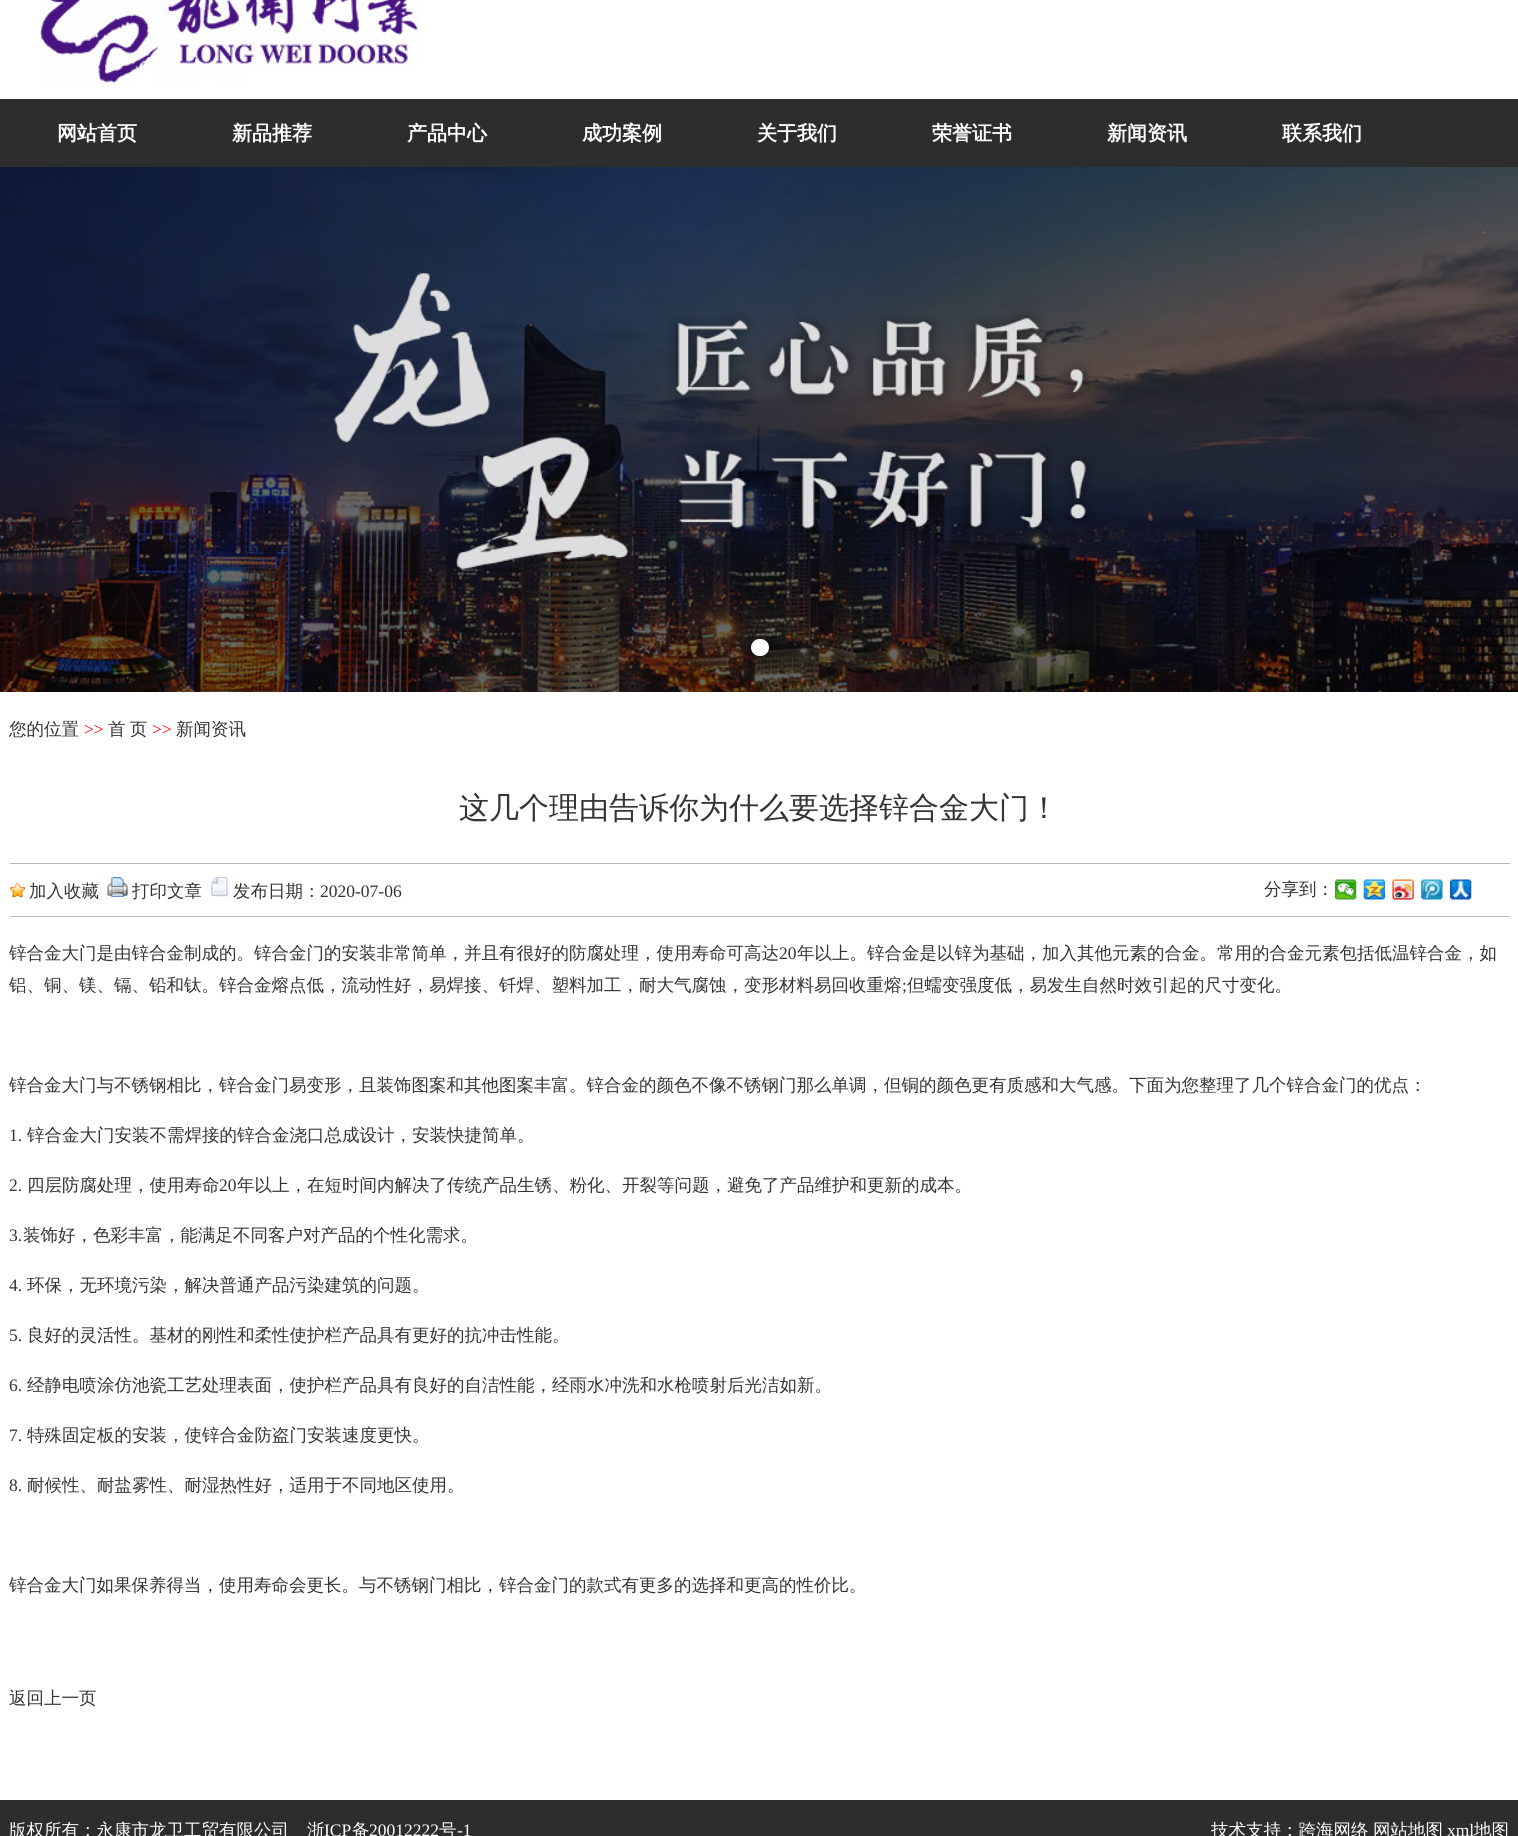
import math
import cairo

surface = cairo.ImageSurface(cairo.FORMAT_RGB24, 1518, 1836)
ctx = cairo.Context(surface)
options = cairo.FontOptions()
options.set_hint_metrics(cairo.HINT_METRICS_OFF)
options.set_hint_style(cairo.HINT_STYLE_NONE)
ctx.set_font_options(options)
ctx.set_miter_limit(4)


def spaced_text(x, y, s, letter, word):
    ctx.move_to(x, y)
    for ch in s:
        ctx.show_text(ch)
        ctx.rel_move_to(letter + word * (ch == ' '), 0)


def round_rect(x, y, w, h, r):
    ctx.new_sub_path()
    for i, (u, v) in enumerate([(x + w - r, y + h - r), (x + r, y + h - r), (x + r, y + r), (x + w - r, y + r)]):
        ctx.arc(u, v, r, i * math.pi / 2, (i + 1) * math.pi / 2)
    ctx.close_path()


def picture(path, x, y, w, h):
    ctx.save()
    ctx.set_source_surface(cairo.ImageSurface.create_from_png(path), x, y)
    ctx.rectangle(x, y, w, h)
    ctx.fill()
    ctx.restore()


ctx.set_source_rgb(1, 1, 1)
ctx.paint()
picture("img1.png", 39, 0, 381, 84)
ctx.set_source_rgb(0.176, 0.176, 0.176)
ctx.rectangle(0, 99, 1518, 68)
ctx.fill()
ctx.select_font_face("WenQuanYi Zen Hei", cairo.FONT_SLANT_NORMAL, cairo.FONT_WEIGHT_BOLD)
ctx.set_font_size(20)
ctx.set_source_rgb(1, 1, 1)
ctx.move_to(57, 140)
ctx.show_text("网站首页")
ctx.move_to(232, 140)
ctx.show_text("新品推荐")
ctx.move_to(407, 140)
ctx.show_text("产品中心")
ctx.move_to(582, 140)
ctx.show_text("成功案例")
ctx.move_to(757, 140)
ctx.show_text("关于我们")
ctx.move_to(932, 140)
ctx.show_text("荣誉证书")
ctx.move_to(1107, 140)
ctx.show_text("新闻资讯")
ctx.move_to(1282, 140)
ctx.show_text("联系我们")
picture("img2.png", 0, 167, 1518, 525)
round_rect(751, 639, 18, 17, 8.5)
ctx.fill()
ctx.select_font_face("WenQuanYi Zen Hei Medium")
ctx.set_font_size(17.5)
ctx.set_source_rgb(0.2, 0.2, 0.2)
ctx.move_to(9, 735)
ctx.show_text("您的位置")
ctx.select_font_face("Liberation Serif")
ctx.set_source_rgb(1, 0, 0)
ctx.move_to(84, 735)
ctx.show_text(">>")
ctx.select_font_face("WenQuanYi Zen Hei Medium")
ctx.set_source_rgb(0.2, 0.2, 0.2)
spaced_text(108, 735, "首 页", 0, -1)
ctx.select_font_face("Liberation Serif")
ctx.set_source_rgb(1, 0, 0)
ctx.move_to(152, 735)
ctx.show_text(">>")
ctx.select_font_face("WenQuanYi Zen Hei Medium")
ctx.set_source_rgb(0.2, 0.2, 0.2)
ctx.move_to(176, 735)
ctx.show_text("新闻资讯")
ctx.set_font_size(30)
ctx.move_to(459, 818)
ctx.show_text("这几个理由告诉你为什么要选择锌合金大门！")
ctx.set_source_rgb(0.718, 0.718, 0.718)
ctx.rectangle(10, 863, 1500, 1)
ctx.fill()
picture("img3.png", 10, 883, 15, 14)
ctx.set_font_size(17.5)
ctx.set_source_rgb(0.2, 0.2, 0.2)
ctx.move_to(29, 897)
ctx.show_text("加入收藏")
picture("img4.png", 107, 877, 21, 20)
ctx.move_to(132, 897)
ctx.show_text("打印文章")
picture("img5.png", 211, 877, 18, 20)
ctx.move_to(233, 897)
ctx.show_text("发布日期：")
ctx.select_font_face("Liberation Serif")
ctx.move_to(320, 897)
ctx.show_text("2020-07-06")
ctx.select_font_face("WenQuanYi Zen Hei Medium")
ctx.move_to(1264, 895)
ctx.show_text("分享到：")
picture("img6.png", 1335, 879, 22, 21)
picture("img7.png", 1363, 879, 22, 21)
picture("img8.png", 1392, 879, 22, 21)
picture("img9.png", 1421, 879, 22, 21)
picture("img10.png", 1450, 879, 22, 21)
ctx.set_source_rgb(0.718, 0.718, 0.718)
ctx.rectangle(10, 916, 1500, 1)
ctx.fill()
ctx.set_source_rgb(0.2, 0.2, 0.2)
ctx.move_to(9, 959)
ctx.show_text("锌合金大门是由锌合金制成的。锌合金门的安装非常简单，并且有很好的防腐处理，使用寿命可高达")
ctx.select_font_face("Liberation Serif")
ctx.move_to(779, 959)
ctx.show_text("20")
ctx.select_font_face("WenQuanYi Zen Hei Medium")
ctx.move_to(797, 959)
ctx.show_text("年以上。锌合金是以锌为基础，加入其他元素的合金。常用的合金元素包括低温锌合金，如")
ctx.move_to(9, 991)
ctx.show_text("铝、铜、镁、镉、铅和钛。锌合金熔点低，流动性好，易焊接、钎焊、塑料加工，耐大气腐蚀，变形材料易回收重熔")
ctx.select_font_face("Liberation Serif")
ctx.move_to(902, 991)
ctx.show_text(";")
ctx.select_font_face("WenQuanYi Zen Hei Medium")
ctx.move_to(907, 991)
ctx.show_text("但蠕变强度低，易发生自然时效引起的尺寸变化。")
ctx.move_to(9, 1091)
ctx.show_text("锌合金大门与不锈钢相比，锌合金门易变形，且装饰图案和其他图案丰富。锌合金的颜色不像不锈钢门那么单调，但铜的颜色更有质感和大气感。下面为您整理了几个锌合金门的优点：")
ctx.select_font_face("Liberation Serif")
ctx.move_to(9, 1141)
ctx.show_text("1.")
ctx.select_font_face("WenQuanYi Zen Hei Medium")
ctx.move_to(27, 1141)
ctx.show_text("锌合金大门安装不需焊接的锌合金浇口总成设计，安装快捷简单。")
ctx.select_font_face("Liberation Serif")
ctx.move_to(9, 1191)
ctx.show_text("2.")
ctx.select_font_face("WenQuanYi Zen Hei Medium")
ctx.move_to(27, 1191)
ctx.show_text("四层防腐处理，使用寿命")
ctx.select_font_face("Liberation Serif")
ctx.move_to(219, 1191)
ctx.show_text("20")
ctx.select_font_face("WenQuanYi Zen Hei Medium")
ctx.move_to(237, 1191)
ctx.show_text("年以上，在短时间内解决了传统产品生锈、粉化、开裂等问题，避免了产品维护和更新的成本。")
ctx.select_font_face("Liberation Serif")
ctx.move_to(9, 1241)
ctx.show_text("3.")
ctx.select_font_face("WenQuanYi Zen Hei Medium")
ctx.move_to(23, 1241)
ctx.show_text("装饰好，色彩丰富，能满足不同客户对产品的个性化需求。")
ctx.select_font_face("Liberation Serif")
ctx.move_to(9, 1291)
ctx.show_text("4.")
ctx.select_font_face("WenQuanYi Zen Hei Medium")
ctx.move_to(27, 1291)
ctx.show_text("环保，无环境污染，解决普通产品污染建筑的问题。")
ctx.select_font_face("Liberation Serif")
ctx.move_to(9, 1341)
ctx.show_text("5.")
ctx.select_font_face("WenQuanYi Zen Hei Medium")
ctx.move_to(27, 1341)
ctx.show_text("良好的灵活性。基材的刚性和柔性使护栏产品具有更好的抗冲击性能。")
ctx.select_font_face("Liberation Serif")
ctx.move_to(9, 1391)
ctx.show_text("6.")
ctx.select_font_face("WenQuanYi Zen Hei Medium")
ctx.move_to(27, 1391)
ctx.show_text("经静电喷涂仿池瓷工艺处理表面，使护栏产品具有良好的自洁性能，经雨水冲洗和水枪喷射后光洁如新。")
ctx.select_font_face("Liberation Serif")
ctx.move_to(9, 1441)
ctx.show_text("7.")
ctx.select_font_face("WenQuanYi Zen Hei Medium")
ctx.move_to(27, 1441)
ctx.show_text("特殊固定板的安装，使锌合金防盗门安装速度更快。")
ctx.select_font_face("Liberation Serif")
ctx.move_to(9, 1491)
ctx.show_text("8.")
ctx.select_font_face("WenQuanYi Zen Hei Medium")
ctx.move_to(27, 1491)
ctx.show_text("耐候性、耐盐雾性、耐湿热性好，适用于不同地区使用。")
ctx.move_to(9, 1591)
ctx.show_text("锌合金大门如果保养得当，使用寿命会更长。与不锈钢门相比，锌合金门的款式有更多的选择和更高的性价比。")
ctx.move_to(9, 1704)
ctx.show_text("返回上一页")
ctx.set_source_rgb(0.176, 0.176, 0.176)
ctx.rectangle(0, 1800, 1518, 36)
ctx.fill()
ctx.set_source_rgb(1, 1, 1)
ctx.move_to(9, 1836)
ctx.show_text("版权所有：永康市龙卫工贸有限公司")
ctx.move_to(307, 1836)
ctx.show_text("浙")
ctx.select_font_face("Liberation Serif")
ctx.move_to(324, 1836)
ctx.show_text("ICP")
ctx.select_font_face("WenQuanYi Zen Hei Medium")
ctx.move_to(352, 1836)
ctx.show_text("备")
ctx.select_font_face("Liberation Serif")
ctx.move_to(369, 1836)
ctx.show_text("20012222")
ctx.select_font_face("WenQuanYi Zen Hei Medium")
ctx.move_to(439, 1836)
ctx.show_text("号")
ctx.select_font_face("Liberation Serif")
ctx.move_to(457, 1836)
ctx.show_text("-1")
ctx.select_font_face("WenQuanYi Zen Hei Medium")
ctx.move_to(1211, 1836)
ctx.show_text("技术支持：跨海网络")
ctx.move_to(1373, 1836)
ctx.show_text("网站地图")
ctx.select_font_face("Liberation Serif")
ctx.move_to(1447, 1836)
ctx.show_text("xml")
ctx.select_font_face("WenQuanYi Zen Hei Medium")
ctx.move_to(1474, 1836)
ctx.show_text("地图")
surface.write_to_png("page.png")
